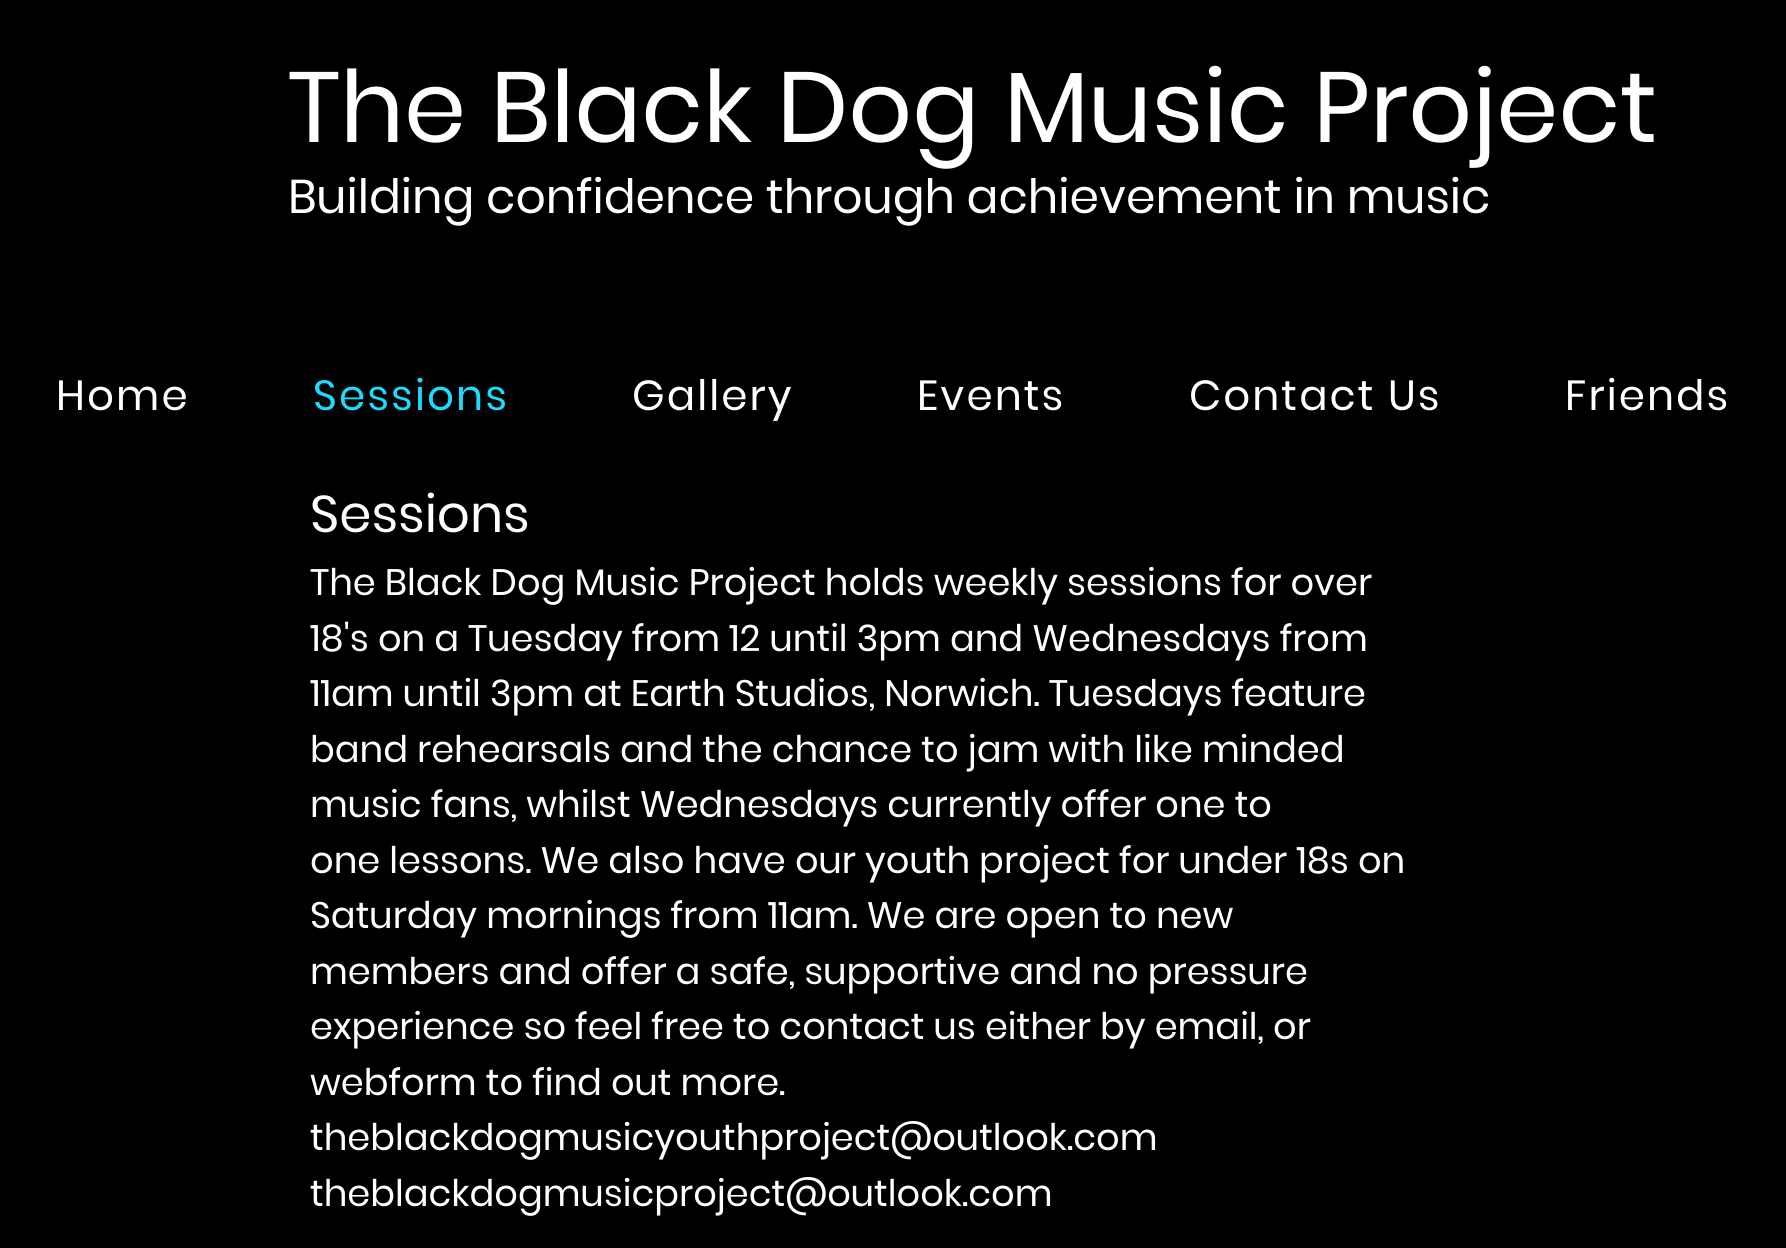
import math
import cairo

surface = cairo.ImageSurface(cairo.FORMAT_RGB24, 1786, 1248)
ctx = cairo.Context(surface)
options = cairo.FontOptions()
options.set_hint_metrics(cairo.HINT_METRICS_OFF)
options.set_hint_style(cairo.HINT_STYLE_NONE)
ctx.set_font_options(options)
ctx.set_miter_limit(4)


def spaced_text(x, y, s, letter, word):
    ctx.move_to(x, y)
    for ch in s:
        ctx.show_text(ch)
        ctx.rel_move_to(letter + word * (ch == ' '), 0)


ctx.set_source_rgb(0, 0, 0)
ctx.paint()
ctx.select_font_face("Poppins")
ctx.set_font_size(99.5)
ctx.set_source_rgb(1, 1, 1)
ctx.move_to(288, 142)
ctx.show_text("The Black Dog Music Project")
ctx.set_font_size(47.3)
ctx.move_to(288, 213)
ctx.show_text("Building confidence through achievement in music")
ctx.set_font_size(42)
spaced_text(56, 410, "Home", 2.1, 0)
ctx.set_source_rgb(0.098, 0.867, 1)
spaced_text(313, 410, "Sessions", 2.1, 0)
ctx.set_source_rgb(1, 1, 1)
spaced_text(632, 410, "Gallery", 2.1, 0)
spaced_text(917, 410, "Events", 2.1, 0)
spaced_text(1189, 410, "Contact Us", 2.1, 0)
spaced_text(1565, 410, "Friends", 2.1, 0)
ctx.set_font_size(51.5)
ctx.move_to(310, 532)
ctx.show_text("Sessions")
ctx.set_font_size(36.75)
ctx.move_to(310, 595)
ctx.show_text("The Black Dog Music Project holds weekly sessions for over")
ctx.move_to(310, 651)
ctx.show_text("18's on a Tuesday from 12 until 3pm and Wednesdays from")
ctx.move_to(310, 706)
ctx.show_text("11am until 3pm at Earth Studios, Norwich. Tuesdays feature")
ctx.move_to(310, 762)
ctx.show_text("band rehearsals and the chance to jam with like minded")
ctx.move_to(310, 817)
ctx.show_text("music fans, whilst Wednesdays currently offer one to")
ctx.move_to(310, 873)
ctx.show_text("one lessons. We also have our youth project for under 18s on")
ctx.move_to(310, 928)
ctx.show_text("Saturday mornings from 11am. We are open to new")
ctx.move_to(310, 984)
ctx.show_text("members and offer a safe, supportive and no pressure")
ctx.move_to(310, 1039)
ctx.show_text("experience so feel free to contact us either by email, or")
ctx.move_to(310, 1095)
ctx.show_text("webform to find out more.")
ctx.move_to(310, 1150)
ctx.show_text("theblackdogmusicyouthproject@outlook.com")
ctx.move_to(310, 1206)
ctx.show_text("theblackdogmusicproject@outlook.com")
surface.write_to_png("page.png")
